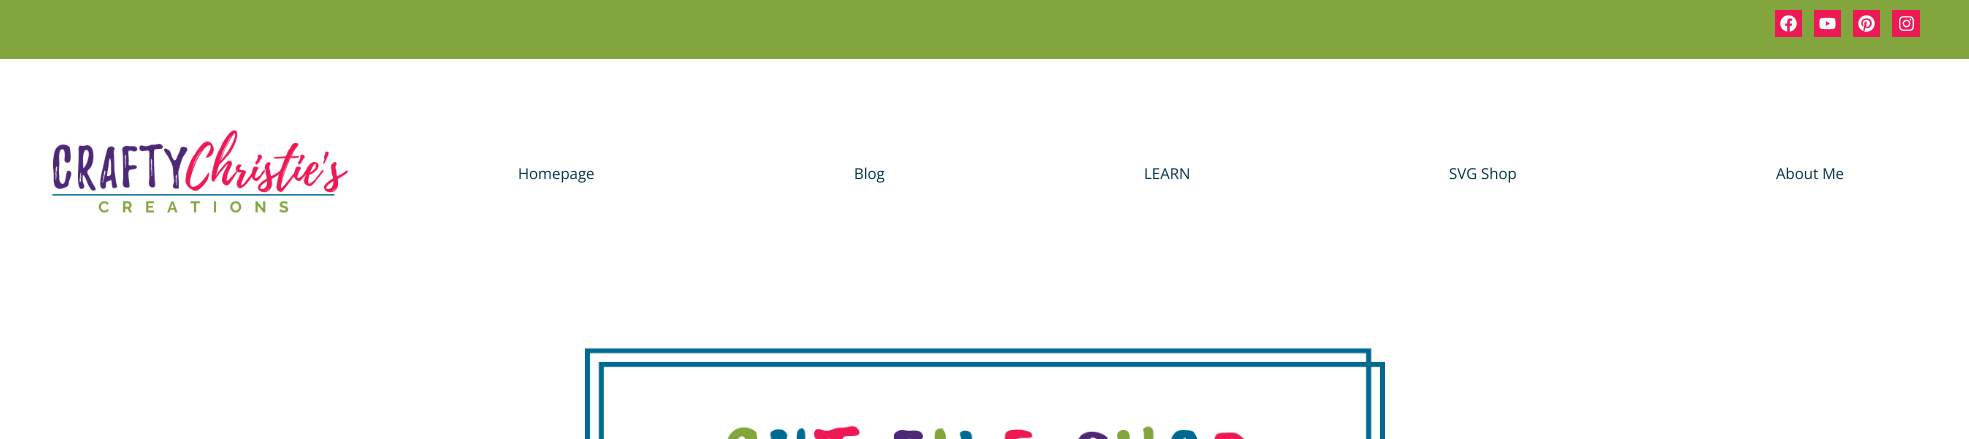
import math
import cairo

surface = cairo.ImageSurface(cairo.FORMAT_RGB24, 1969, 439)
ctx = cairo.Context(surface)
options = cairo.FontOptions()
options.set_hint_metrics(cairo.HINT_METRICS_OFF)
options.set_hint_style(cairo.HINT_STYLE_NONE)
ctx.set_font_options(options)
ctx.set_miter_limit(4)


def picture(path, x, y, w, h):
    ctx.save()
    ctx.set_source_surface(cairo.ImageSurface.create_from_png(path), x, y)
    ctx.rectangle(x, y, w, h)
    ctx.fill()
    ctx.restore()


ctx.set_source_rgb(1, 1, 1)
ctx.paint()
ctx.set_source_rgb(0.51, 0.647, 0.243)
ctx.rectangle(0, 0, 1969, 59)
ctx.fill()
ctx.set_source_rgb(0.929, 0.094, 0.329)
ctx.rectangle(1775, 10, 27, 27)
ctx.fill()
picture("img1.png", 1780, 15, 17, 17)
ctx.rectangle(1814, 10, 27, 27)
ctx.fill()
picture("img2.png", 1819, 17, 17, 13)
ctx.rectangle(1853, 10, 27, 27)
ctx.fill()
picture("img3.png", 1858, 15, 17, 17)
ctx.rectangle(1892, 10, 28, 27)
ctx.fill()
picture("img4.png", 1899, 16, 15, 15)
picture("img5.png", 52, 130, 297, 83)
ctx.select_font_face("Open Sans")
ctx.set_font_size(15)
ctx.set_source_rgb(0.008, 0.196, 0.286)
ctx.move_to(518, 179)
ctx.show_text("Homepage")
ctx.move_to(854, 179)
ctx.show_text("Blog")
ctx.move_to(1144, 179)
ctx.show_text("LEARN")
ctx.move_to(1449, 179)
ctx.show_text("SVG Shop")
ctx.move_to(1776, 179)
ctx.show_text("About Me")
picture("img6.png", 585, 347, 800, 92)
surface.write_to_png("page.png")
